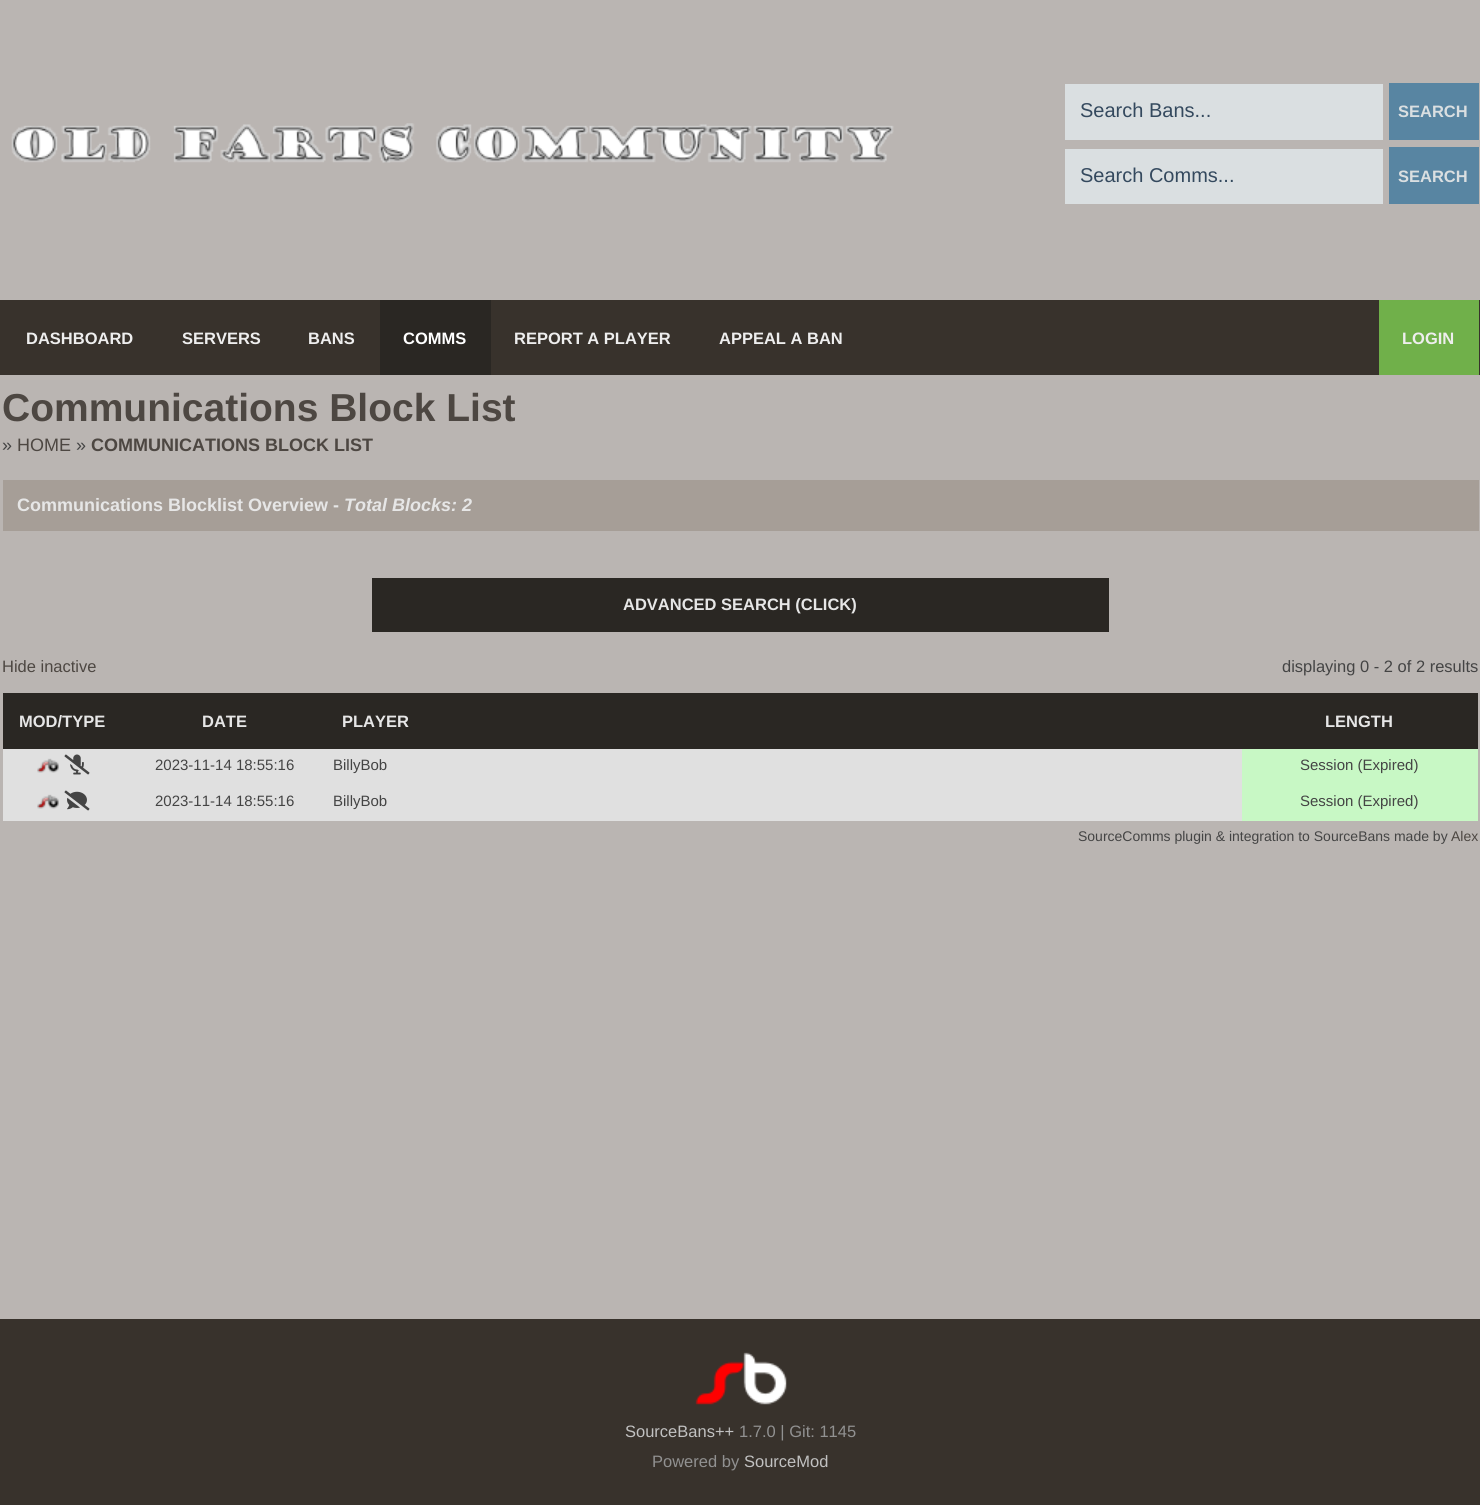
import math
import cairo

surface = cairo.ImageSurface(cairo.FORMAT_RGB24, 1480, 1505)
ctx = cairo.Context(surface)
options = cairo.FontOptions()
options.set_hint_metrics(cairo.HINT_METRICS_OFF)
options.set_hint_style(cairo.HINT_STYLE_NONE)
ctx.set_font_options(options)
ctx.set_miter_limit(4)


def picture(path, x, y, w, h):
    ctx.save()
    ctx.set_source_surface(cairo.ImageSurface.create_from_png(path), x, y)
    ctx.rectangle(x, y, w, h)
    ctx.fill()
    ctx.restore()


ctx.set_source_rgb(0.729, 0.71, 0.698)
ctx.paint()
picture("img1.png", 11, 123, 883, 40)
ctx.set_source_rgb(0.855, 0.875, 0.882)
ctx.rectangle(1065, 84, 318, 56)
ctx.fill()
ctx.select_font_face("Liberation Sans")
ctx.set_font_size(20)
ctx.set_source_rgb(0.204, 0.286, 0.369)
ctx.move_to(1080, 117)
ctx.show_text("Search Bans...")
ctx.set_source_rgb(0.345, 0.522, 0.635)
ctx.rectangle(1389, 83, 90, 57)
ctx.fill()
ctx.select_font_face("Liberation Sans", cairo.FONT_SLANT_NORMAL, cairo.FONT_WEIGHT_BOLD)
ctx.set_font_size(16.5)
ctx.set_source_rgb(0.855, 0.875, 0.882)
ctx.move_to(1398, 117)
ctx.show_text("SEARCH")
ctx.rectangle(1065, 149, 318, 55)
ctx.fill()
ctx.select_font_face("Liberation Sans")
ctx.set_font_size(20)
ctx.set_source_rgb(0.204, 0.286, 0.369)
ctx.move_to(1080, 182)
ctx.show_text("Search Comms...")
ctx.set_source_rgb(0.345, 0.522, 0.635)
ctx.rectangle(1389, 147, 90, 57)
ctx.fill()
ctx.select_font_face("Liberation Sans", cairo.FONT_SLANT_NORMAL, cairo.FONT_WEIGHT_BOLD)
ctx.set_font_size(16.5)
ctx.set_source_rgb(0.855, 0.875, 0.882)
ctx.move_to(1398, 182)
ctx.show_text("SEARCH")
ctx.set_source_rgb(0.22, 0.196, 0.173)
ctx.rectangle(0, 300, 1480, 75)
ctx.fill()
ctx.set_source_rgb(0.933, 0.933, 0.933)
ctx.move_to(26, 344)
ctx.show_text("DASHBOARD")
ctx.move_to(182, 344)
ctx.show_text("SERVERS")
ctx.move_to(308, 344)
ctx.show_text("BANS")
ctx.set_source_rgb(0.165, 0.153, 0.137)
ctx.rectangle(380, 300, 111, 75)
ctx.fill()
ctx.set_source_rgb(1, 1, 1)
ctx.move_to(403, 344)
ctx.show_text("COMMS")
ctx.set_source_rgb(0.933, 0.933, 0.933)
ctx.move_to(514, 344)
ctx.show_text("REPORT A PLAYER")
ctx.move_to(719, 344)
ctx.show_text("APPEAL A BAN")
ctx.set_source_rgb(0.439, 0.69, 0.29)
ctx.rectangle(1379, 300, 100, 75)
ctx.fill()
ctx.set_source_rgb(0.933, 0.933, 0.933)
ctx.move_to(1402, 344)
ctx.show_text("LOGIN")
ctx.set_font_size(39)
ctx.set_source_rgb(0.302, 0.278, 0.259)
ctx.move_to(2, 421)
ctx.show_text("Communications Block List")
ctx.select_font_face("Liberation Sans")
ctx.set_font_size(18)
ctx.set_source_rgb(0.267, 0.267, 0.267)
ctx.move_to(2, 451)
ctx.show_text("»")
ctx.set_source_rgb(0.302, 0.278, 0.259)
ctx.move_to(17, 451)
ctx.show_text("HOME")
ctx.set_source_rgb(0.267, 0.267, 0.267)
ctx.move_to(76, 451)
ctx.show_text("»")
ctx.select_font_face("Liberation Sans", cairo.FONT_SLANT_NORMAL, cairo.FONT_WEIGHT_BOLD)
ctx.set_source_rgb(0.302, 0.278, 0.259)
ctx.move_to(91, 451)
ctx.show_text("COMMUNICATIONS BLOCK LIST")
ctx.set_source_rgb(0.651, 0.62, 0.592)
ctx.rectangle(3, 480, 1476, 51)
ctx.fill()
ctx.set_source_rgb(0.902, 0.902, 0.902)
ctx.move_to(17, 511)
ctx.show_text("Communications Blocklist Overview -")
ctx.select_font_face("Liberation Sans", cairo.FONT_SLANT_ITALIC, cairo.FONT_WEIGHT_BOLD)
ctx.move_to(344, 511)
ctx.show_text("Total Blocks: 2")
ctx.set_source_rgb(0.165, 0.153, 0.137)
ctx.rectangle(372, 578, 737, 54)
ctx.fill()
ctx.select_font_face("Liberation Sans", cairo.FONT_SLANT_NORMAL, cairo.FONT_WEIGHT_BOLD)
ctx.set_font_size(16.5)
ctx.set_source_rgb(0.902, 0.902, 0.902)
ctx.move_to(623, 610)
ctx.show_text("ADVANCED SEARCH (CLICK)")
ctx.select_font_face("Liberation Sans")
ctx.set_source_rgb(0.302, 0.278, 0.259)
ctx.move_to(2, 672)
ctx.show_text("Hide inactive")
ctx.set_source_rgb(0.267, 0.267, 0.267)
ctx.move_to(1282, 672)
ctx.show_text("displaying 0 - 2 of 2 results")
ctx.set_source_rgb(0.165, 0.153, 0.137)
ctx.rectangle(3, 693, 1475, 56)
ctx.fill()
ctx.select_font_face("Liberation Sans", cairo.FONT_SLANT_NORMAL, cairo.FONT_WEIGHT_BOLD)
ctx.set_source_rgb(0.902, 0.902, 0.902)
ctx.move_to(19, 727)
ctx.show_text("MOD/TYPE")
ctx.move_to(202, 727)
ctx.show_text("DATE")
ctx.move_to(342, 727)
ctx.show_text("PLAYER")
ctx.move_to(1325, 727)
ctx.show_text("LENGTH")
ctx.set_source_rgb(0.878, 0.878, 0.878)
ctx.rectangle(3, 749, 1239, 36)
ctx.fill()
picture("img2.png", 37, 758, 22, 15)
picture("img3.png", 64, 754, 26, 21)
ctx.select_font_face("Liberation Sans")
ctx.set_font_size(15)
ctx.set_source_rgb(0.267, 0.267, 0.267)
ctx.move_to(155, 770)
ctx.show_text("2023-11-14 18:55:16")
ctx.move_to(333, 770)
ctx.show_text("BillyBob")
ctx.set_source_rgb(0.784, 0.969, 0.773)
ctx.rectangle(1242, 749, 236, 72)
ctx.fill()
ctx.set_source_rgb(0.267, 0.267, 0.267)
ctx.move_to(1300, 770)
ctx.show_text("Session (Expired)")
ctx.set_source_rgb(0.878, 0.878, 0.878)
ctx.rectangle(3, 785, 1239, 36)
ctx.fill()
picture("img2.png", 37, 794, 22, 15)
picture("img4.png", 64, 790, 26, 21)
ctx.set_source_rgb(0.267, 0.267, 0.267)
ctx.move_to(155, 806)
ctx.show_text("2023-11-14 18:55:16")
ctx.move_to(333, 806)
ctx.show_text("BillyBob")
ctx.move_to(1300, 806)
ctx.show_text("Session (Expired)")
ctx.set_font_size(14)
ctx.move_to(1078, 841)
ctx.show_text("SourceComms plugin & integration to SourceBans made by")
ctx.set_source_rgb(0.302, 0.278, 0.259)
ctx.move_to(1451, 841)
ctx.show_text("Alex")
ctx.set_source_rgb(0.22, 0.196, 0.173)
ctx.rectangle(0, 1319, 1480, 186)
ctx.fill()
picture("img5.png", 695, 1352, 92, 53)
ctx.set_font_size(16.5)
ctx.set_source_rgb(0.757, 0.757, 0.757)
ctx.move_to(625, 1437)
ctx.show_text("SourceBans++")
ctx.set_source_rgb(0.569, 0.569, 0.569)
ctx.move_to(739, 1437)
ctx.show_text("1.7.0 | Git: 1145")
ctx.move_to(652, 1467)
ctx.show_text("Powered by")
ctx.set_source_rgb(0.757, 0.757, 0.757)
ctx.move_to(744, 1467)
ctx.show_text("SourceMod")
surface.write_to_png("page.png")
